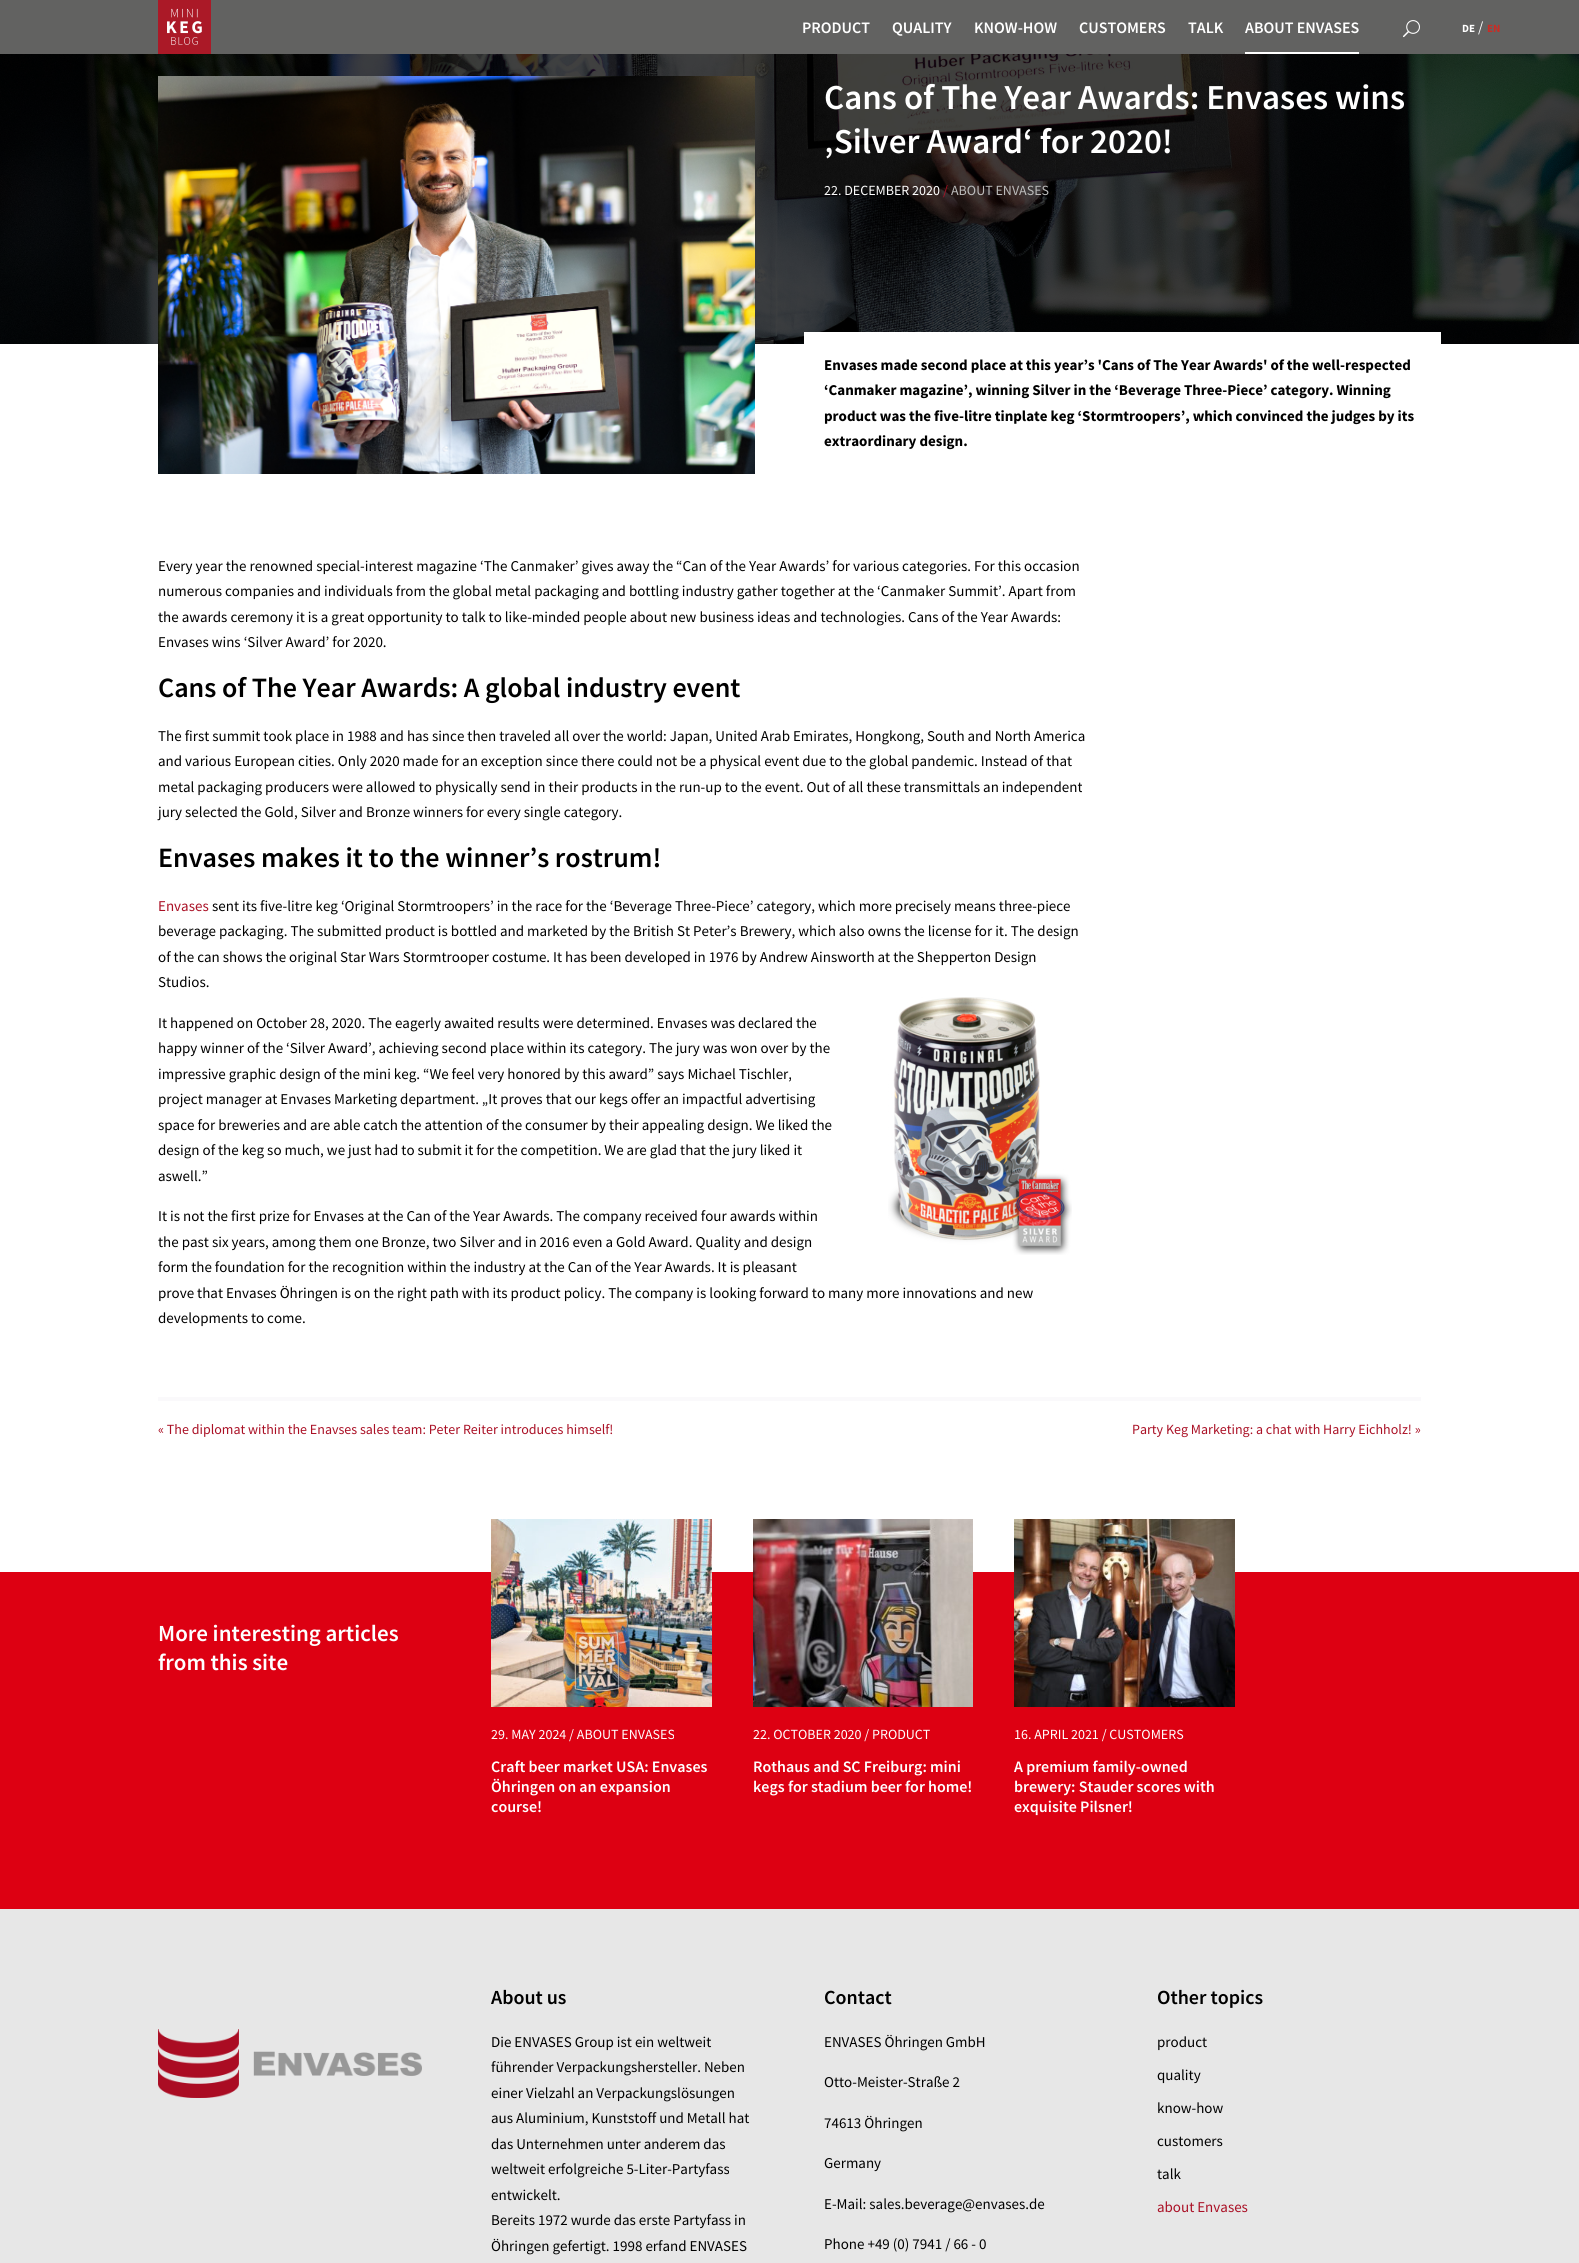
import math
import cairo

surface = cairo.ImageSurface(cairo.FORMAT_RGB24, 1579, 2263)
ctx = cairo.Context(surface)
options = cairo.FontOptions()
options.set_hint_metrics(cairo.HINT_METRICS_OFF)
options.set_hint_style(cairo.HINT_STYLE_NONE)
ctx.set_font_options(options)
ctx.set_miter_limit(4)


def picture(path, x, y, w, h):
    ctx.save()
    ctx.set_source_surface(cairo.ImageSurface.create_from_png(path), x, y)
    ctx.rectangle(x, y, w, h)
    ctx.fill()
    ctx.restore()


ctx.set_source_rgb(1, 1, 1)
ctx.paint()
ctx.set_source_rgb(0.384, 0.384, 0.38)
ctx.rectangle(0, 0, 1579, 54)
ctx.fill()
picture("img1.png", 158, 0, 53, 54)
ctx.select_font_face("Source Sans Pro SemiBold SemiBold")
ctx.set_font_size(16)
ctx.set_source_rgb(1, 1, 1)
ctx.move_to(802, 33)
ctx.show_text("PRODUCT")
ctx.move_to(892, 33)
ctx.show_text("QUALITY")
ctx.move_to(974, 33)
ctx.show_text("KNOW-HOW")
ctx.move_to(1079, 33)
ctx.show_text("CUSTOMERS")
ctx.move_to(1188, 33)
ctx.show_text("TALK")
ctx.move_to(1245, 33)
ctx.show_text("ABOUT ENVASES")
ctx.rectangle(1245, 52, 114, 2)
ctx.fill()
picture("img2.png", 1403, 20, 17, 18)
ctx.select_font_face("Source Sans Pro", cairo.FONT_SLANT_NORMAL, cairo.FONT_WEIGHT_BOLD)
ctx.set_font_size(11)
ctx.move_to(1462, 32)
ctx.show_text("DE")
ctx.select_font_face("Source Sans Pro")
ctx.set_font_size(15)
ctx.move_to(1478, 32)
ctx.show_text("/")
ctx.select_font_face("Source Sans Pro", cairo.FONT_SLANT_NORMAL, cairo.FONT_WEIGHT_BOLD)
ctx.set_font_size(11)
ctx.set_source_rgb(0.796, 0.169, 0.141)
ctx.move_to(1487, 32)
ctx.show_text("EN")
picture("img3.png", 0, 54, 1579, 290)
picture("img4.png", 158, 76, 597, 398)
ctx.select_font_face("Source Sans Pro SemiBold SemiBold")
ctx.set_font_size(35)
ctx.set_source_rgb(1, 1, 1)
ctx.move_to(824, 109)
ctx.show_text("Cans of The Year Awards: Envases wins")
ctx.move_to(824, 153)
ctx.show_text("‚Silver Award‘ for 2020!")
ctx.select_font_face("Source Sans Pro")
ctx.set_font_size(14)
ctx.move_to(824, 195)
ctx.show_text("22. DECEMBER 2020")
ctx.set_source_rgb(0.667, 0.063, 0.145)
ctx.move_to(943, 195)
ctx.show_text("/")
ctx.set_source_rgb(0.737, 0.737, 0.737)
ctx.move_to(951, 195)
ctx.show_text("ABOUT ENVASES")
ctx.set_source_rgb(1, 1, 1)
ctx.rectangle(804, 332, 637, 12)
ctx.fill()
ctx.select_font_face("Source Sans Pro", cairo.FONT_SLANT_NORMAL, cairo.FONT_WEIGHT_BOLD)
ctx.set_font_size(15)
ctx.set_source_rgb(0, 0, 0)
ctx.move_to(824, 370)
ctx.show_text("Envases made second place at this year’s 'Cans of The Year Awards' of the well-respected")
ctx.move_to(824, 395)
ctx.show_text("‘Canmaker magazine’, winning Silver in the ‘Beverage Three-Piece’ category. Winning")
ctx.move_to(824, 421)
ctx.show_text("product was the five-litre tinplate keg ‘Stormtroopers’, which convinced the judges by its")
ctx.move_to(824, 446)
ctx.show_text("extraordinary design.")
ctx.select_font_face("Source Sans Pro")
ctx.move_to(158, 571)
ctx.show_text("Every year the renowned special-interest magazine ‘The Canmaker’ gives away the “Can of the Year Awards’ for various categories. For this occasion")
ctx.move_to(158, 596)
ctx.show_text("numerous companies and individuals from the global metal packaging and bottling industry gather together at the ‘Canmaker Summit’. Apart from")
ctx.move_to(158, 622)
ctx.show_text("the awards ceremony it is a great opportunity to talk to like-minded people about new business ideas and technologies. Cans of the Year Awards:")
ctx.move_to(158, 647)
ctx.show_text("Envases wins ‘Silver Award’ for 2020.")
ctx.select_font_face("Source Sans Pro SemiBold SemiBold")
ctx.set_font_size(28)
ctx.move_to(158, 697)
ctx.show_text("Cans of The Year Awards: A global industry event")
ctx.select_font_face("Source Sans Pro")
ctx.set_font_size(15)
ctx.move_to(158, 741)
ctx.show_text("The first summit took place in 1988 and has since then traveled all over the world: Japan, United Arab Emirates, Hongkong, South and North America")
ctx.move_to(158, 766)
ctx.show_text("and various European cities. Only 2020 made for an exception since there could not be a physical event due to the global pandemic. Instead of that")
ctx.move_to(158, 792)
ctx.show_text("metal packaging producers were allowed to physically send in their products in the run-up to the event. Out of all these transmittals an independent")
ctx.move_to(158, 817)
ctx.show_text("jury selected the Gold, Silver and Bronze winners for every single category.")
ctx.select_font_face("Source Sans Pro SemiBold SemiBold")
ctx.set_font_size(28)
ctx.move_to(158, 867)
ctx.show_text("Envases makes it to the winner’s rostrum!")
ctx.select_font_face("Source Sans Pro")
ctx.set_font_size(15)
ctx.set_source_rgb(0.667, 0.063, 0.145)
ctx.move_to(158, 911)
ctx.show_text("Envases")
ctx.set_source_rgb(0, 0, 0)
ctx.move_to(212, 911)
ctx.show_text("sent its five-litre keg ‘Original Stormtroopers’ in the race for the ‘Beverage Three-Piece’ category, which more precisely means three-piece")
ctx.move_to(158, 936)
ctx.show_text("beverage packaging. The submitted product is bottled and marketed by the British St Peter’s Brewery, which also owns the license for it. The design")
ctx.move_to(158, 962)
ctx.show_text("of the can shows the original Star Wars Stormtrooper costume. It has been developed in 1976 by Andrew Ainsworth at the Shepperton Design")
ctx.move_to(158, 987)
ctx.show_text("Studios.")
picture("img5.png", 888, 997, 184, 258)
ctx.move_to(158, 1028)
ctx.show_text("It happened on October 28, 2020. The eagerly awaited results were determined. Envases was declared the")
ctx.move_to(158, 1053)
ctx.show_text("happy winner of the ‘Silver Award’, achieving second place within its category. The jury was won over by the")
ctx.move_to(158, 1079)
ctx.show_text("impressive graphic design of the mini keg. “We feel very honored by this award” says Michael Tischler,")
ctx.move_to(158, 1104)
ctx.show_text("project manager at Envases Marketing department. „It proves that our kegs offer an impactful advertising")
ctx.move_to(158, 1130)
ctx.show_text("space for breweries and are able catch the attention of the consumer by their appealing design. We liked the")
ctx.move_to(158, 1155)
ctx.show_text("design of the keg so much, we just had to submit it for the competition. We are glad that the jury liked it")
ctx.move_to(158, 1181)
ctx.show_text("aswell.”")
ctx.move_to(158, 1221)
ctx.show_text("It is not the first prize for Envases at the Can of the Year Awards. The company received four awards within")
ctx.move_to(158, 1247)
ctx.show_text("the past six years, among them one Bronze, two Silver and in 2016 even a Gold Award. Quality and design")
ctx.move_to(158, 1272)
ctx.show_text("form the foundation for the recognition within the industry at the Can of the Year Awards. It is pleasant")
ctx.move_to(158, 1298)
ctx.show_text("prove that Envases Öhringen is on the right path with its product policy. The company is looking forward to many more innovations and new")
ctx.move_to(158, 1323)
ctx.show_text("developments to come.")
ctx.set_source_rgb(0.98, 0.976, 0.984)
ctx.rectangle(158, 1397, 1263, 4)
ctx.fill()
ctx.set_font_size(14)
ctx.set_source_rgb(0.667, 0.063, 0.145)
ctx.move_to(158, 1434)
ctx.show_text("« The diplomat within the Enavses sales team: Peter Reiter introduces himself!")
ctx.move_to(1132, 1434)
ctx.show_text("Party Keg Marketing: a chat with Harry Eichholz! »")
ctx.set_source_rgb(0.867, 0, 0.071)
ctx.rectangle(0, 1572, 1579, 337)
ctx.fill()
ctx.select_font_face("Source Sans Pro SemiBold SemiBold")
ctx.set_font_size(23)
ctx.set_source_rgb(1, 1, 1)
ctx.move_to(158, 1641)
ctx.show_text("More interesting articles")
ctx.move_to(158, 1670)
ctx.show_text("from this site")
picture("img6.png", 491, 1519, 221, 188)
ctx.select_font_face("Source Sans Pro")
ctx.set_font_size(14)
ctx.move_to(491, 1739)
ctx.show_text("29. MAY 2024 / ABOUT ENVASES")
ctx.select_font_face("Source Sans Pro SemiBold SemiBold")
ctx.set_font_size(16)
ctx.move_to(491, 1772)
ctx.show_text("Craft beer market USA: Envases")
ctx.move_to(491, 1792)
ctx.show_text("Öhringen on an expansion")
ctx.move_to(491, 1812)
ctx.show_text("course!")
picture("img7.png", 753, 1519, 220, 188)
ctx.select_font_face("Source Sans Pro")
ctx.set_font_size(14)
ctx.move_to(753, 1739)
ctx.show_text("22. OCTOBER 2020 / PRODUCT")
ctx.select_font_face("Source Sans Pro SemiBold SemiBold")
ctx.set_font_size(16)
ctx.move_to(753, 1772)
ctx.show_text("Rothaus and SC Freiburg: mini")
ctx.move_to(753, 1792)
ctx.show_text("kegs for stadium beer for home!")
picture("img8.png", 1014, 1519, 221, 188)
ctx.select_font_face("Source Sans Pro")
ctx.set_font_size(14)
ctx.move_to(1014, 1739)
ctx.show_text("16. APRIL 2021 / CUSTOMERS")
ctx.select_font_face("Source Sans Pro SemiBold SemiBold")
ctx.set_font_size(16)
ctx.move_to(1014, 1772)
ctx.show_text("A premium family-owned")
ctx.move_to(1014, 1792)
ctx.show_text("brewery: Stauder scores with")
ctx.move_to(1014, 1812)
ctx.show_text("exquisite Pilsner!")
ctx.set_source_rgb(0.906, 0.906, 0.906)
ctx.rectangle(0, 1909, 1579, 354)
ctx.fill()
picture("img9.png", 158, 2029, 264, 69)
ctx.set_font_size(20)
ctx.set_source_rgb(0, 0, 0)
ctx.move_to(491, 2004)
ctx.show_text("About us")
ctx.select_font_face("Source Sans Pro")
ctx.set_font_size(15)
ctx.move_to(491, 2047)
ctx.show_text("Die ENVASES Group ist ein weltweit")
ctx.move_to(491, 2072)
ctx.show_text("führender Verpackungshersteller. Neben")
ctx.move_to(491, 2098)
ctx.show_text("einer Vielzahl an Verpackungslösungen")
ctx.move_to(491, 2123)
ctx.show_text("aus Aluminium, Kunststoff und Metall hat")
ctx.move_to(491, 2149)
ctx.show_text("das Unternehmen unter anderem das")
ctx.move_to(491, 2174)
ctx.show_text("weltweit erfolgreiche 5-Liter-Partyfass")
ctx.move_to(491, 2200)
ctx.show_text("entwickelt.")
ctx.move_to(491, 2225)
ctx.show_text("Bereits 1972 wurde das erste Partyfass in")
ctx.move_to(491, 2251)
ctx.show_text("Öhringen gefertigt. 1998 erfand ENVASES")
ctx.select_font_face("Source Sans Pro SemiBold SemiBold")
ctx.set_font_size(20)
ctx.move_to(824, 2004)
ctx.show_text("Contact")
ctx.select_font_face("Source Sans Pro")
ctx.set_font_size(15)
ctx.move_to(824, 2047)
ctx.show_text("ENVASES Öhringen GmbH")
ctx.move_to(824, 2087)
ctx.show_text("Otto-Meister-Straße 2")
ctx.move_to(824, 2128)
ctx.show_text("74613 Öhringen")
ctx.move_to(824, 2168)
ctx.show_text("Germany")
ctx.move_to(824, 2209)
ctx.show_text("E-Mail: sales.beverage@envases.de")
ctx.move_to(824, 2249)
ctx.show_text("Phone +49 (0) 7941 / 66 - 0")
ctx.select_font_face("Source Sans Pro SemiBold SemiBold")
ctx.set_font_size(20)
ctx.move_to(1157, 2004)
ctx.show_text("Other topics")
ctx.select_font_face("Source Sans Pro")
ctx.set_font_size(15)
ctx.move_to(1157, 2047)
ctx.show_text("product")
ctx.move_to(1157, 2080)
ctx.show_text("quality")
ctx.move_to(1157, 2113)
ctx.show_text("know-how")
ctx.move_to(1157, 2146)
ctx.show_text("customers")
ctx.move_to(1157, 2179)
ctx.show_text("talk")
ctx.set_source_rgb(0.667, 0.063, 0.145)
ctx.move_to(1157, 2212)
ctx.show_text("about Envases")
surface.write_to_png("page.png")
